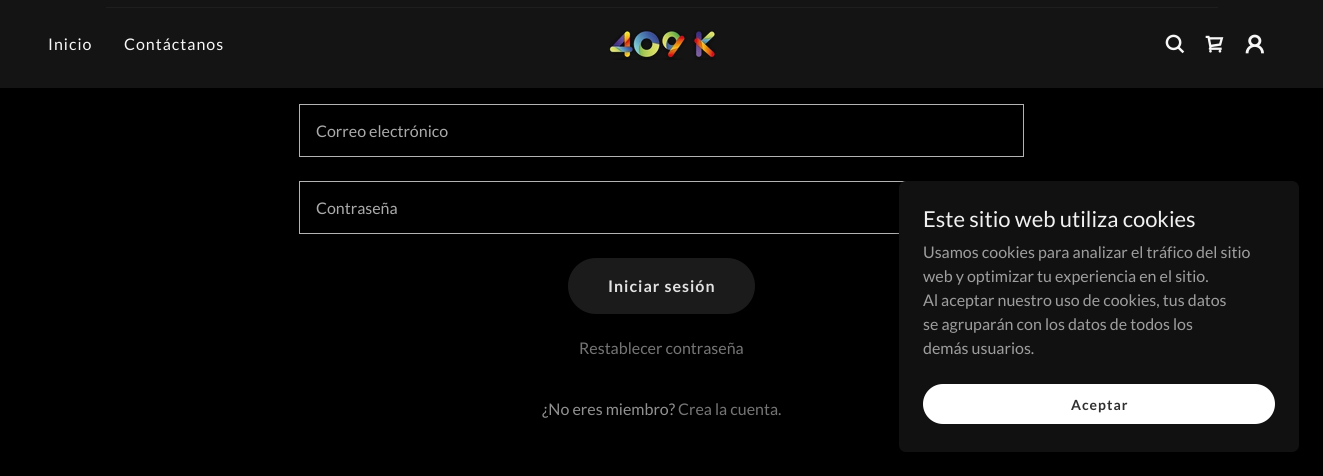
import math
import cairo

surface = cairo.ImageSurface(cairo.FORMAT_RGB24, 1323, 476)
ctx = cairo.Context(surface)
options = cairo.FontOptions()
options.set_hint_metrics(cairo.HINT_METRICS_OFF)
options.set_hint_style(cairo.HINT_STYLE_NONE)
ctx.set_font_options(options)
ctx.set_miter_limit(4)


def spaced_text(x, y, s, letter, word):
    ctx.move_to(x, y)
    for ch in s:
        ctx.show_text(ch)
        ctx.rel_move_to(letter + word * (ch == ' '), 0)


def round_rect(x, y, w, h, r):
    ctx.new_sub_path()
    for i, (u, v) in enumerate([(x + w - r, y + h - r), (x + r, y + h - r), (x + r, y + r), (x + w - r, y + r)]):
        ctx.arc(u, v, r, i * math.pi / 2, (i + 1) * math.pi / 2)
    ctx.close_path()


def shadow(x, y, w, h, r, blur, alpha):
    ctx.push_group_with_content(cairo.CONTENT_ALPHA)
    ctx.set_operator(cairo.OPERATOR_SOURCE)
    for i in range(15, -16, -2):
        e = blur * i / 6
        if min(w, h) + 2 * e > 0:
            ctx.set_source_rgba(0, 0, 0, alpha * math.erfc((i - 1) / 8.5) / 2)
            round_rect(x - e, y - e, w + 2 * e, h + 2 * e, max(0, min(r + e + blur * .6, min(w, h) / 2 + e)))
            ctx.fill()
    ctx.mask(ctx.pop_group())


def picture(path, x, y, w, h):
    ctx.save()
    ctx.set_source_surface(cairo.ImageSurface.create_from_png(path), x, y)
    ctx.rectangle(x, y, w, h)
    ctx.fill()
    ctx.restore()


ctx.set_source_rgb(0, 0, 0)
ctx.paint()
ctx.set_source_rgb(0.082, 0.082, 0.082)
ctx.rectangle(0, 0, 1323, 88)
ctx.fill()
ctx.select_font_face("Lato")
ctx.set_font_size(16)
ctx.set_source_rgb(0.969, 0.969, 0.969)
spaced_text(48, 50, "Inicio", 1, 0)
spaced_text(124, 50, "Contáctanos", 1, 0)
picture("img1.png", 609, 30, 107, 30)
picture("img2.png", 1165, 34, 20, 20)
picture("img3.png", 1205, 35, 19, 18)
picture("img4.png", 1245, 34, 19, 20)
ctx.set_source_rgb(0.118, 0.118, 0.118)
ctx.rectangle(106, 7, 1112, 1)
ctx.fill()
ctx.rectangle(299.5, 104.5, 724, 52)
ctx.set_source_rgb(0.702, 0.702, 0.702)
ctx.set_line_width(1)
ctx.stroke()
ctx.set_source_rgb(0.671, 0.671, 0.671)
ctx.move_to(316, 137)
ctx.show_text("Correo electrónico")
ctx.rectangle(299.5, 181.5, 724, 52)
ctx.set_source_rgb(0.702, 0.702, 0.702)
ctx.stroke()
ctx.set_source_rgb(0.671, 0.671, 0.671)
ctx.move_to(316, 214)
ctx.show_text("Contraseña")
ctx.set_source_rgb(0.106, 0.106, 0.106)
round_rect(568, 258, 187, 56, 28)
ctx.fill()
ctx.select_font_face("Lato", cairo.FONT_SLANT_NORMAL, cairo.FONT_WEIGHT_BOLD)
ctx.set_source_rgb(0.886, 0.886, 0.886)
spaced_text(608, 292, "Iniciar sesión", 1, 0)
ctx.select_font_face("Lato")
ctx.set_source_rgb(0.459, 0.459, 0.459)
ctx.move_to(579, 354)
ctx.show_text("Restablecer contraseña")
ctx.set_source_rgb(0.569, 0.569, 0.569)
ctx.move_to(542, 415)
ctx.show_text("¿No eres miembro?")
ctx.set_source_rgb(0.459, 0.459, 0.459)
ctx.move_to(678, 415)
ctx.show_text("Crea la cuenta.")
ctx.set_source_rgb(0, 0, 0)
shadow(899, 183, 400, 271, 7, 3, 0.3)
ctx.set_source_rgb(0.067, 0.067, 0.067)
round_rect(899, 181, 400, 271, 7)
ctx.fill()
ctx.set_font_size(22)
ctx.set_source_rgb(0.945, 0.945, 0.945)
ctx.move_to(923, 227)
ctx.show_text("Este sitio web utiliza cookies")
ctx.set_font_size(16)
ctx.set_source_rgb(0.62, 0.62, 0.62)
ctx.move_to(923, 258)
ctx.show_text("Usamos cookies para analizar el tráfico del sitio")
ctx.move_to(923, 282)
ctx.show_text("web y optimizar tu experiencia en el sitio.")
ctx.move_to(923, 306)
ctx.show_text("Al aceptar nuestro uso de cookies, tus datos")
ctx.move_to(923, 330)
ctx.show_text("se agruparán con los datos de todos los")
ctx.move_to(923, 354)
ctx.show_text("demás usuarios.")
ctx.set_source_rgb(1, 1, 1)
round_rect(923, 384, 352, 40, 20)
ctx.fill()
ctx.select_font_face("Lato", cairo.FONT_SLANT_NORMAL, cairo.FONT_WEIGHT_BOLD)
ctx.set_font_size(14)
ctx.set_source_rgb(0.188, 0.188, 0.188)
spaced_text(1071, 410, "Aceptar", 1, 0)
surface.write_to_png("page.png")
